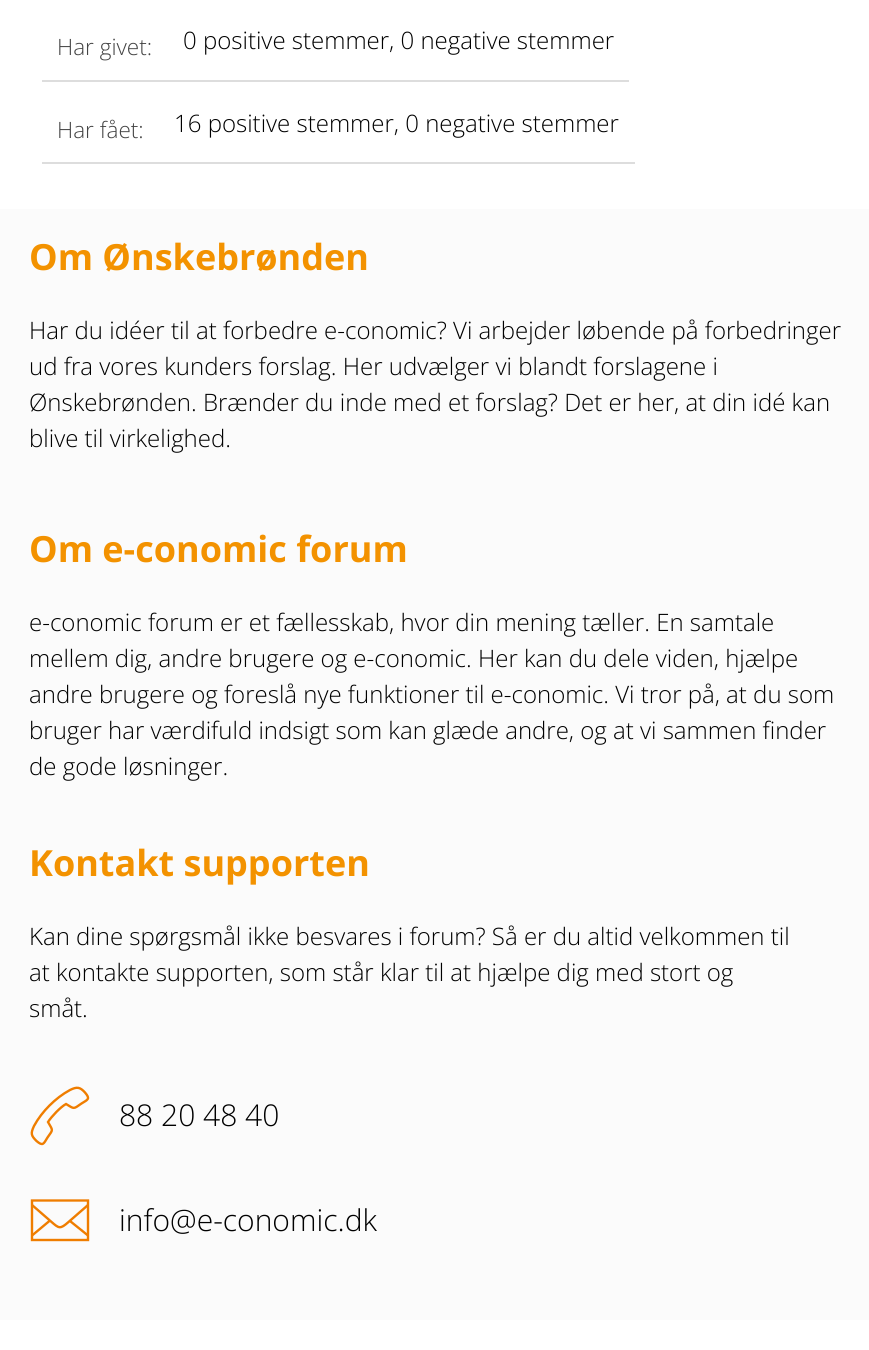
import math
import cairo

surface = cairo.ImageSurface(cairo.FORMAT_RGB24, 869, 1350)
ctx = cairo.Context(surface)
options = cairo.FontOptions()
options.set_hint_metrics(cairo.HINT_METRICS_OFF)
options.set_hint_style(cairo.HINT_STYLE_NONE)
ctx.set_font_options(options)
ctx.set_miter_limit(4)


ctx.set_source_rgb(1, 1, 1)
ctx.paint()
ctx.set_source_rgb(0.867, 0.867, 0.867)
ctx.rectangle(42, 80, 587, 2)
ctx.fill()
ctx.select_font_face("Open Sans Light")
ctx.set_font_size(22.5)
ctx.set_source_rgb(0.267, 0.267, 0.267)
ctx.move_to(57, 55)
ctx.show_text("Har givet:")
ctx.set_font_size(24)
ctx.set_source_rgb(0, 0, 0)
ctx.move_to(183, 49)
ctx.show_text("0 positive stemmer, 0 negative stemmer")
ctx.set_source_rgb(0.867, 0.867, 0.867)
ctx.rectangle(42, 162, 593, 2)
ctx.fill()
ctx.set_font_size(22.5)
ctx.set_source_rgb(0.267, 0.267, 0.267)
ctx.move_to(57, 138)
ctx.show_text("Har fået:")
ctx.set_font_size(24)
ctx.set_source_rgb(0, 0, 0)
ctx.move_to(174, 132)
ctx.show_text("16 positive stemmer, 0 negative stemmer")
ctx.set_source_rgb(0.984, 0.984, 0.984)
ctx.rectangle(0, 209, 869, 1111)
ctx.fill()
ctx.select_font_face("Open Sans", cairo.FONT_SLANT_NORMAL, cairo.FONT_WEIGHT_BOLD)
ctx.set_font_size(36)
ctx.set_source_rgb(0.953, 0.573, 0)
ctx.move_to(29, 270)
ctx.show_text("Om Ønskebrønden")
ctx.select_font_face("Open Sans Light")
ctx.set_font_size(24)
ctx.set_source_rgb(0, 0, 0)
ctx.move_to(29, 339)
ctx.show_text("Har du idéer til at forbedre e-conomic? Vi arbejder løbende på forbedringer")
ctx.move_to(29, 375)
ctx.show_text("ud fra vores kunders forslag. Her udvælger vi blandt forslagene i")
ctx.move_to(29, 411)
ctx.show_text("Ønskebrønden. Brænder du inde med et forslag? Det er her, at din idé kan")
ctx.move_to(29, 447)
ctx.show_text("blive til virkelighed.")
ctx.select_font_face("Open Sans", cairo.FONT_SLANT_NORMAL, cairo.FONT_WEIGHT_BOLD)
ctx.set_font_size(36)
ctx.set_source_rgb(0.953, 0.573, 0)
ctx.move_to(29, 562)
ctx.show_text("Om e-conomic forum")
ctx.select_font_face("Open Sans Light")
ctx.set_font_size(24)
ctx.set_source_rgb(0, 0, 0)
ctx.move_to(29, 631)
ctx.show_text("e-conomic forum er et fællesskab, hvor din mening tæller. En samtale")
ctx.move_to(29, 667)
ctx.show_text("mellem dig, andre brugere og e-conomic. Her kan du dele viden, hjælpe")
ctx.move_to(29, 703)
ctx.show_text("andre brugere og foreslå nye funktioner til e-conomic. Vi tror på, at du som")
ctx.move_to(29, 739)
ctx.show_text("bruger har værdifuld indsigt som kan glæde andre, og at vi sammen finder")
ctx.move_to(29, 775)
ctx.show_text("de gode løsninger.")
ctx.select_font_face("Open Sans", cairo.FONT_SLANT_NORMAL, cairo.FONT_WEIGHT_BOLD)
ctx.set_font_size(36)
ctx.set_source_rgb(0.953, 0.573, 0)
ctx.move_to(29, 876)
ctx.show_text("Kontakt supporten")
ctx.select_font_face("Open Sans Light")
ctx.set_font_size(24)
ctx.set_source_rgb(0, 0, 0)
ctx.move_to(29, 945)
ctx.show_text("Kan dine spørgsmål ikke besvares i forum? Så er du altid velkommen til")
ctx.move_to(29, 981)
ctx.show_text("at kontakte supporten, som står klar til at hjælpe dig med stort og")
ctx.move_to(29, 1017)
ctx.show_text("småt.")
ctx.new_path()
ctx.move_to(48, 1122)
ctx.curve_to(53, 1131, 53.5, 1129, 47.5, 1137.5)
ctx.curve_to(43.5, 1144, 43, 1146.5, 36.5, 1141)
ctx.curve_to(31, 1135.5, 30.5, 1133.5, 34, 1126)
ctx.curve_to(38, 1118.5, 43.5, 1111.5, 49.5, 1105.5)
ctx.curve_to(55.5, 1099.5, 62.5, 1094, 70, 1090)
ctx.curve_to(77, 1086.5, 80, 1087, 85, 1092.5)
ctx.curve_to(90.5, 1099, 88, 1099.5, 81.5, 1103.5)
ctx.curve_to(73, 1109.5, 74.5, 1109, 66, 1104)
ctx.curve_to(60.5, 1107, 51.5, 1116.5, 48, 1122)
ctx.close_path()
ctx.set_source_rgb(0.937, 0.49, 0)
ctx.set_line_width(2.4)
ctx.stroke()
ctx.set_font_size(30)
ctx.set_source_rgb(0, 0, 0)
ctx.move_to(119, 1126)
ctx.show_text("88 20 48 40")
ctx.new_path()
ctx.move_to(32, 1200.5)
ctx.line_to(88, 1200.5)
ctx.line_to(88, 1240)
ctx.line_to(32, 1240)
ctx.close_path()
ctx.set_source_rgb(0.937, 0.49, 0)
ctx.set_line_cap(cairo.LINE_CAP_ROUND)
ctx.stroke()
ctx.new_path()
ctx.move_to(70, 1221)
ctx.line_to(88, 1235.5)
ctx.move_to(32, 1235.5)
ctx.line_to(50, 1220.5)
ctx.move_to(32, 1205)
ctx.line_to(51, 1221.5)
ctx.curve_to(59, 1228.5, 60, 1229.5, 68.5, 1222)
ctx.line_to(88, 1205)
ctx.set_line_cap(cairo.LINE_CAP_BUTT)
ctx.stroke()
ctx.set_source_rgb(0, 0, 0)
ctx.move_to(119, 1231)
ctx.show_text("info@e-conomic.dk")
surface.write_to_png("page.png")
